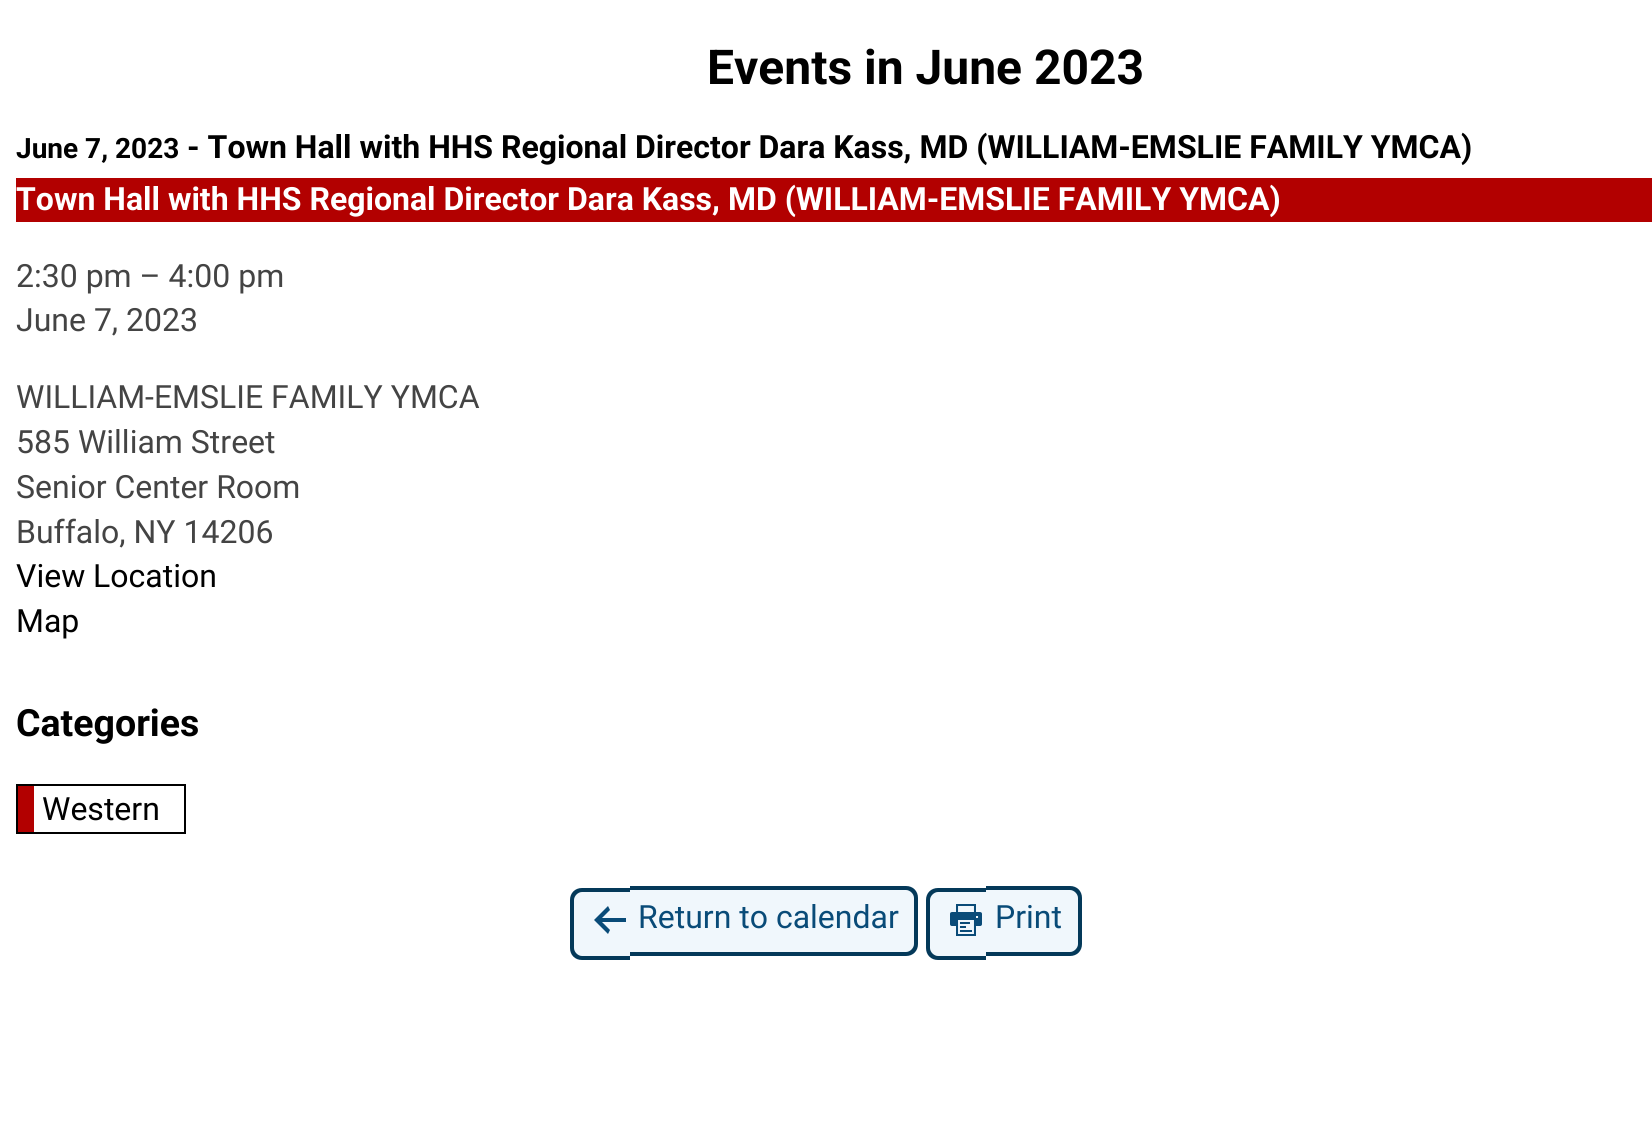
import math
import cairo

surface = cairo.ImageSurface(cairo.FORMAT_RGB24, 1652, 1125)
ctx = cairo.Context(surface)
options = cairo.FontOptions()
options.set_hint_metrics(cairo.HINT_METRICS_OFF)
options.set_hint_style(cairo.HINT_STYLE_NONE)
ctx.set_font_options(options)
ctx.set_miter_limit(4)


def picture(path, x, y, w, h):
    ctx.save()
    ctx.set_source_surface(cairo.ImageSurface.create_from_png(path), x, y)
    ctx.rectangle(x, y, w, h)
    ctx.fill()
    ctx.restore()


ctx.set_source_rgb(1, 1, 1)
ctx.paint()
ctx.select_font_face("Roboto", cairo.FONT_SLANT_NORMAL, cairo.FONT_WEIGHT_BOLD)
ctx.set_font_size(48)
ctx.set_source_rgb(0, 0, 0)
ctx.move_to(707, 84)
ctx.show_text("Events in June 2023")
ctx.set_font_size(28)
ctx.move_to(16, 158)
ctx.show_text("June 7, 2023")
ctx.set_font_size(32)
ctx.move_to(187, 158)
ctx.show_text("- Town Hall with HHS Regional Director Dara Kass, MD (WILLIAM-EMSLIE FAMILY YMCA)")
ctx.set_source_rgb(0.698, 0, 0)
ctx.rectangle(16, 178, 1636, 44)
ctx.fill()
ctx.set_source_rgb(1, 1, 1)
ctx.move_to(16, 210)
ctx.show_text("Town Hall with HHS Regional Director Dara Kass, MD (WILLIAM-EMSLIE FAMILY YMCA)")
ctx.select_font_face("Roboto")
ctx.set_source_rgb(0.267, 0.267, 0.267)
ctx.move_to(16, 287)
ctx.show_text("2:30 pm – 4:00 pm")
ctx.move_to(16, 331)
ctx.show_text("June 7, 2023")
ctx.move_to(16, 408)
ctx.show_text("WILLIAM-EMSLIE FAMILY YMCA")
ctx.move_to(16, 453)
ctx.show_text("585 William Street")
ctx.move_to(16, 498)
ctx.show_text("Senior Center Room")
ctx.move_to(16, 543)
ctx.show_text("Buffalo, NY 14206")
ctx.set_source_rgb(0, 0, 0)
ctx.move_to(16, 587)
ctx.show_text("View Location")
ctx.move_to(16, 632)
ctx.show_text("Map")
ctx.select_font_face("Roboto", cairo.FONT_SLANT_NORMAL, cairo.FONT_WEIGHT_BOLD)
ctx.set_font_size(37.5)
ctx.move_to(16, 736)
ctx.show_text("Categories")
ctx.rectangle(17, 785, 168, 48)
ctx.stroke()
ctx.set_source_rgb(0.698, 0, 0)
ctx.rectangle(18, 786, 16, 46)
ctx.fill()
ctx.select_font_face("Roboto")
ctx.set_font_size(32)
ctx.set_source_rgb(0, 0, 0)
ctx.move_to(42, 820)
ctx.show_text("Western")
ctx.set_source_rgb(0.941, 0.965, 0.988)
ctx.new_path()
ctx.move_to(582, 888)
ctx.line_to(630, 888)
ctx.line_to(630, 960)
ctx.line_to(582, 960)
ctx.curve_to(575.5, 960, 570, 954.5, 570, 948)
ctx.line_to(570, 900)
ctx.curve_to(570, 893.5, 575.5, 888, 582, 888)
ctx.close_path()
ctx.fill()
ctx.set_source_rgb(0.016, 0.224, 0.349)
ctx.set_fill_rule(cairo.FILL_RULE_EVEN_ODD)
ctx.new_path()
ctx.move_to(582, 888)
ctx.line_to(630, 888)
ctx.line_to(630, 960)
ctx.line_to(582, 960)
ctx.curve_to(575, 960, 570, 955, 570, 948)
ctx.line_to(570, 900)
ctx.curve_to(570, 893, 575, 888, 582, 888)
ctx.close_path()
ctx.move_to(582, 892)
ctx.line_to(630, 892)
ctx.line_to(630, 956)
ctx.line_to(582, 956)
ctx.curve_to(578, 956, 574, 952, 574, 948)
ctx.line_to(574, 900)
ctx.curve_to(574, 896, 578, 892, 582, 892)
ctx.close_path()
ctx.fill()
ctx.set_source_rgb(0.941, 0.965, 0.988)
ctx.new_path()
ctx.move_to(630, 886)
ctx.line_to(906, 886)
ctx.curve_to(912.5, 886, 918, 891.5, 918, 898)
ctx.line_to(918, 944)
ctx.curve_to(918, 950.5, 912.5, 956, 906, 956)
ctx.line_to(630, 956)
ctx.close_path()
ctx.fill()
ctx.set_source_rgb(0.016, 0.224, 0.349)
ctx.new_path()
ctx.move_to(630, 886)
ctx.line_to(906, 886)
ctx.curve_to(913, 886, 918, 891, 918, 898)
ctx.line_to(918, 944)
ctx.curve_to(918, 951, 913, 956, 906, 956)
ctx.line_to(630, 956)
ctx.close_path()
ctx.move_to(630, 890)
ctx.line_to(906, 890)
ctx.curve_to(910, 890, 914, 894, 914, 898)
ctx.line_to(914, 944)
ctx.curve_to(914, 948, 910, 952, 906, 952)
ctx.line_to(630, 952)
ctx.close_path()
ctx.fill()
ctx.set_source_rgb(0.039, 0.294, 0.471)
ctx.set_fill_rule(cairo.FILL_RULE_WINDING)
ctx.new_path()
ctx.move_to(626, 918)
ctx.line_to(626, 922)
ctx.line_to(602, 922)
ctx.line_to(610, 930)
ctx.line_to(608, 934)
ctx.line_to(594, 920)
ctx.line_to(608, 906)
ctx.line_to(610, 910)
ctx.line_to(602, 918)
ctx.close_path()
ctx.fill()
ctx.move_to(638, 928)
ctx.show_text("Return to calendar")
ctx.set_source_rgb(0.941, 0.965, 0.988)
ctx.new_path()
ctx.move_to(938, 888)
ctx.line_to(986, 888)
ctx.line_to(986, 960)
ctx.line_to(938, 960)
ctx.curve_to(931.5, 960, 926, 954.5, 926, 948)
ctx.line_to(926, 900)
ctx.curve_to(926, 893.5, 931.5, 888, 938, 888)
ctx.close_path()
ctx.fill()
ctx.set_source_rgb(0.016, 0.224, 0.349)
ctx.set_fill_rule(cairo.FILL_RULE_EVEN_ODD)
ctx.new_path()
ctx.move_to(938, 888)
ctx.line_to(986, 888)
ctx.line_to(986, 960)
ctx.line_to(938, 960)
ctx.curve_to(931, 960, 926, 955, 926, 948)
ctx.line_to(926, 900)
ctx.curve_to(926, 893, 931, 888, 938, 888)
ctx.close_path()
ctx.move_to(938, 892)
ctx.line_to(986, 892)
ctx.line_to(986, 956)
ctx.line_to(938, 956)
ctx.curve_to(934, 956, 930, 952, 930, 948)
ctx.line_to(930, 900)
ctx.curve_to(930, 896, 934, 892, 938, 892)
ctx.close_path()
ctx.fill()
ctx.set_source_rgb(0.941, 0.965, 0.988)
ctx.new_path()
ctx.move_to(986, 886)
ctx.line_to(1070, 886)
ctx.curve_to(1076.5, 886, 1082, 891.5, 1082, 898)
ctx.line_to(1082, 944)
ctx.curve_to(1082, 950.5, 1076.5, 956, 1070, 956)
ctx.line_to(986, 956)
ctx.close_path()
ctx.fill()
ctx.set_source_rgb(0.016, 0.224, 0.349)
ctx.new_path()
ctx.move_to(986, 886)
ctx.line_to(1070, 886)
ctx.curve_to(1077, 886, 1082, 891, 1082, 898)
ctx.line_to(1082, 944)
ctx.curve_to(1082, 951, 1077, 956, 1070, 956)
ctx.line_to(986, 956)
ctx.close_path()
ctx.move_to(986, 890)
ctx.line_to(1070, 890)
ctx.curve_to(1074, 890, 1078, 894, 1078, 898)
ctx.line_to(1078, 944)
ctx.curve_to(1078, 948, 1074, 952, 1070, 952)
ctx.line_to(986, 952)
ctx.close_path()
ctx.fill()
picture("img1.png", 950, 904, 32, 32)
ctx.set_source_rgb(0.039, 0.294, 0.471)
ctx.move_to(995, 928)
ctx.show_text("Print")
surface.write_to_png("page.png")
